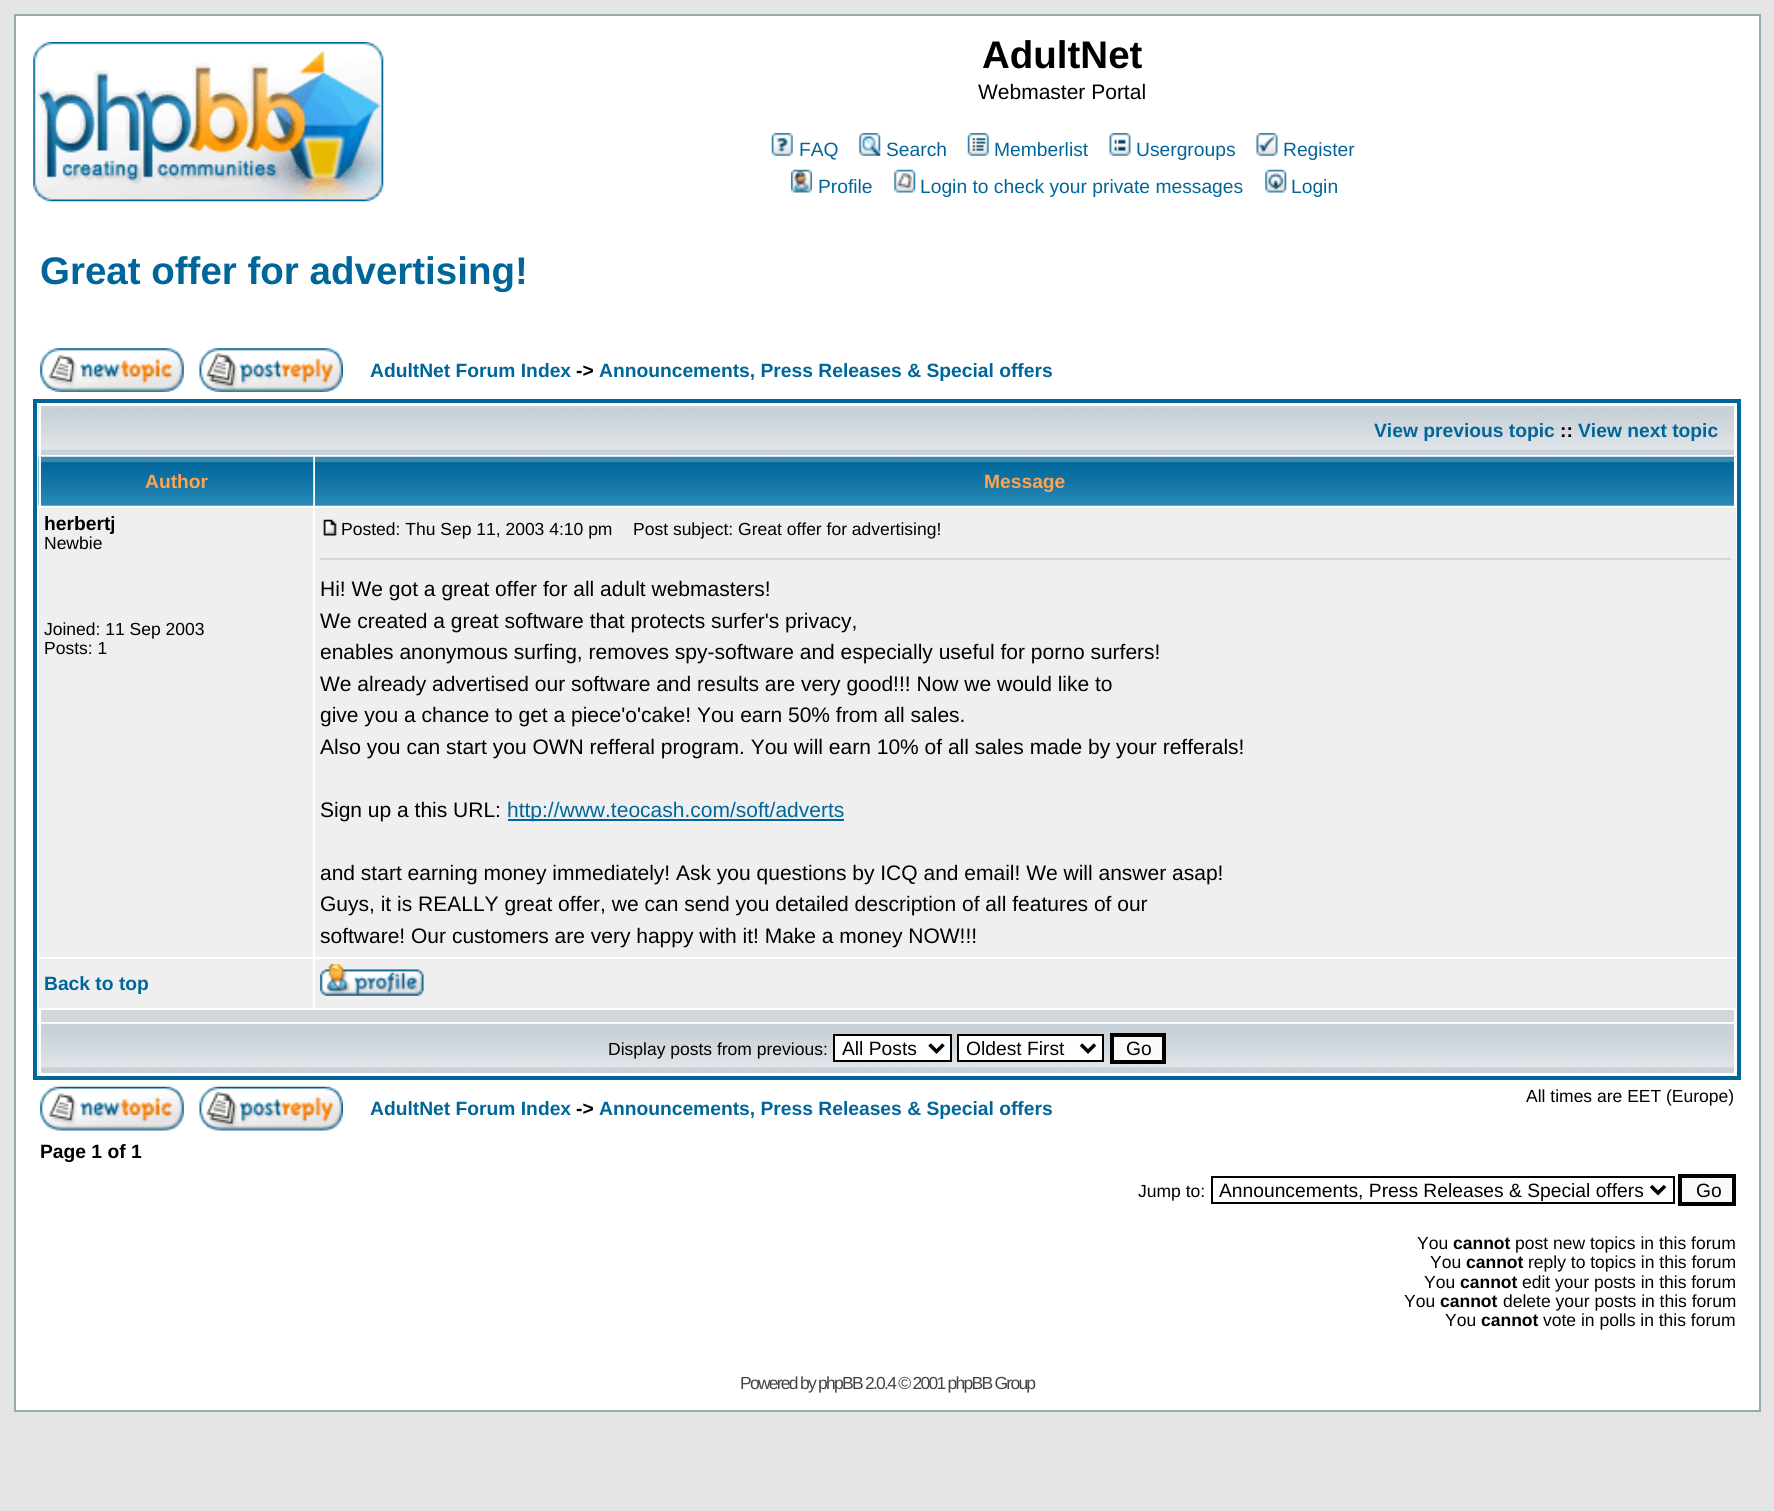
import math
import cairo

surface = cairo.ImageSurface(cairo.FORMAT_RGB24, 1774, 1511)
ctx = cairo.Context(surface)
options = cairo.FontOptions()
options.set_hint_metrics(cairo.HINT_METRICS_OFF)
options.set_hint_style(cairo.HINT_STYLE_NONE)
ctx.set_font_options(options)
ctx.set_miter_limit(4)


def spaced_text(x, y, s, letter, word):
    ctx.move_to(x, y)
    for ch in s:
        ctx.show_text(ch)
        ctx.rel_move_to(letter + word * (ch == ' '), 0)


def picture(path, x, y, w, h):
    ctx.save()
    ctx.set_source_surface(cairo.ImageSurface.create_from_png(path), x, y)
    ctx.rectangle(x, y, w, h)
    ctx.fill()
    ctx.restore()


ctx.set_source_rgb(0.898, 0.898, 0.898)
ctx.paint()
ctx.set_source_rgb(1, 1, 1)
ctx.rectangle(15, 15, 1745, 1396)
ctx.fill_preserve()
ctx.set_source_rgb(0.596, 0.667, 0.694)
ctx.stroke()
picture("img1.png", 33, 42, 351, 160)
ctx.select_font_face("Liberation Sans", cairo.FONT_SLANT_NORMAL, cairo.FONT_WEIGHT_BOLD)
ctx.set_font_size(38.5)
ctx.set_source_rgb(0, 0, 0)
ctx.move_to(982, 68)
ctx.show_text("AdultNet")
ctx.select_font_face("Liberation Sans")
ctx.set_font_size(21)
ctx.move_to(978, 99)
ctx.show_text("Webmaster Portal")
picture("img2.png", 771, 133, 22, 23)
ctx.set_font_size(19.25)
ctx.set_source_rgb(0, 0.4, 0.6)
ctx.move_to(799, 156)
ctx.show_text("FAQ")
picture("img3.png", 859, 133, 22, 23)
ctx.move_to(886, 156)
ctx.show_text("Search")
picture("img4.png", 967, 133, 22, 23)
ctx.move_to(994, 156)
ctx.show_text("Memberlist")
picture("img5.png", 1109, 133, 22, 23)
ctx.move_to(1136, 156)
ctx.show_text("Usergroups")
picture("img6.png", 1256, 133, 22, 23)
ctx.move_to(1283, 156)
ctx.show_text("Register")
picture("img7.png", 791, 169, 21, 24)
ctx.move_to(818, 193)
ctx.show_text("Profile")
picture("img8.png", 894, 169, 22, 24)
ctx.move_to(920, 193)
ctx.show_text("Login to check your private messages")
picture("img9.png", 1265, 169, 22, 24)
ctx.move_to(1291, 193)
ctx.show_text("Login")
ctx.select_font_face("Liberation Sans", cairo.FONT_SLANT_NORMAL, cairo.FONT_WEIGHT_BOLD)
ctx.set_font_size(38.5)
ctx.move_to(40, 284)
ctx.show_text("Great offer for advertising!")
picture("img10.png", 40, 348, 144, 44)
picture("img11.png", 199, 348, 144, 44)
ctx.set_font_size(19.25)
ctx.move_to(370, 377)
ctx.show_text("AdultNet Forum Index")
ctx.set_source_rgb(0, 0, 0)
ctx.move_to(576, 377)
ctx.show_text("->")
ctx.set_source_rgb(0, 0.4, 0.6)
ctx.move_to(599, 377)
ctx.show_text("Announcements, Press Releases & Special offers")
ctx.rectangle(35, 401, 1704, 677)
ctx.set_line_width(4)
ctx.stroke()
picture("img12.png", 38, 404, 1696, 51)
ctx.set_source_rgb(1, 1, 1)
ctx.rectangle(39, 404, 1697, 2)
ctx.fill()
ctx.rectangle(39, 404, 2, 51)
ctx.fill()
ctx.set_source_rgb(0, 0.4, 0.6)
ctx.move_to(1374, 437)
ctx.show_text("View previous topic")
ctx.set_source_rgb(0, 0, 0)
ctx.move_to(1560, 437)
ctx.show_text("::")
ctx.set_source_rgb(0, 0.4, 0.6)
ctx.move_to(1578, 437)
ctx.show_text("View next topic")
picture("img13.png", 38, 456, 276, 50)
ctx.set_source_rgb(1, 1, 1)
ctx.rectangle(39, 457, 2, 49)
ctx.fill()
ctx.set_source_rgb(1, 0.639, 0.31)
ctx.move_to(145, 488)
ctx.show_text("Author")
picture("img14.png", 315, 456, 1421, 50)
ctx.set_source_rgb(1, 1, 1)
ctx.rectangle(1734, 457, 2, 49)
ctx.fill()
ctx.set_source_rgb(1, 0.639, 0.31)
ctx.move_to(984, 488)
ctx.show_text("Message")
ctx.set_source_rgb(0.937, 0.937, 0.937)
ctx.rectangle(39, 508, 274, 449)
ctx.fill()
ctx.set_source_rgb(0, 0, 0)
ctx.move_to(44, 530)
ctx.show_text("herbertj")
ctx.select_font_face("Liberation Sans")
ctx.set_font_size(17.5)
ctx.move_to(44, 549)
ctx.show_text("Newbie")
ctx.move_to(44, 635)
ctx.show_text("Joined: 11 Sep 2003")
ctx.move_to(44, 654)
ctx.show_text("Posts: 1")
ctx.set_source_rgb(0.937, 0.937, 0.937)
ctx.rectangle(315, 508, 1421, 449)
ctx.fill()
picture("img15.png", 323, 519, 14, 17)
ctx.set_source_rgb(0, 0, 0)
ctx.move_to(341, 535)
ctx.show_text("Posted: Thu Sep 11, 2003 4:10 pm")
ctx.move_to(633, 535)
ctx.show_text("Post subject: Great offer for advertising!")
ctx.set_source_rgb(0.82, 0.843, 0.863)
ctx.rectangle(320, 558, 1411, 2)
ctx.fill()
ctx.set_font_size(21)
ctx.set_source_rgb(0, 0, 0)
ctx.move_to(320, 596)
ctx.show_text("Hi! We got a great offer for all adult webmasters!")
ctx.move_to(320, 628)
ctx.show_text("We created a great software that protects surfer's privacy,")
ctx.move_to(320, 659)
ctx.show_text("enables anonymous surfing, removes spy-software and especially useful for porno surfers!")
ctx.move_to(320, 691)
ctx.show_text("We already advertised our software and results are very good!!! Now we would like to")
ctx.move_to(320, 722)
ctx.show_text("give you a chance to get a piece'o'cake! You earn 50% from all sales.")
ctx.move_to(320, 754)
ctx.show_text("Also you can start you OWN refferal program. You will earn 10% of all sales made by your refferals!")
ctx.move_to(320, 817)
ctx.show_text("Sign up a this URL:")
ctx.set_source_rgb(0, 0.4, 0.6)
ctx.rectangle(508, 819, 336, 2)
ctx.fill()
ctx.move_to(507, 817)
ctx.show_text("http://www.teocash.com/soft/adverts")
ctx.set_source_rgb(0, 0, 0)
ctx.move_to(320, 880)
ctx.show_text("and start earning money immediately! Ask you questions by ICQ and email! We will answer asap!")
ctx.move_to(320, 911)
ctx.show_text("Guys, it is REALLY great offer, we can send you detailed description of all features of our")
ctx.move_to(320, 943)
ctx.show_text("software! Our customers are very happy with it! Make a money NOW!!!")
ctx.set_source_rgb(0.937, 0.937, 0.937)
ctx.rectangle(39, 959, 274, 49)
ctx.fill()
ctx.select_font_face("Liberation Sans", cairo.FONT_SLANT_NORMAL, cairo.FONT_WEIGHT_BOLD)
ctx.set_font_size(19.25)
ctx.set_source_rgb(0, 0.4, 0.6)
ctx.move_to(44, 990)
ctx.show_text("Back to top")
ctx.set_source_rgb(0.937, 0.937, 0.937)
ctx.rectangle(315, 959, 1421, 49)
ctx.fill()
picture("img16.png", 320, 964, 104, 32)
ctx.set_source_rgb(0.82, 0.843, 0.863)
ctx.rectangle(41, 1010, 1693, 12)
ctx.fill()
picture("img17.png", 38, 1023, 1698, 52)
ctx.set_source_rgb(1, 1, 1)
ctx.rectangle(1734, 1024, 2, 51)
ctx.fill()
ctx.rectangle(39, 1073, 1697, 2)
ctx.fill()
ctx.rectangle(39, 1024, 2, 51)
ctx.fill()
ctx.select_font_face("Liberation Sans")
ctx.set_font_size(17.5)
ctx.set_source_rgb(0, 0, 0)
ctx.move_to(608, 1055)
ctx.show_text("Display posts from previous:")
ctx.set_source_rgb(1, 1, 1)
ctx.rectangle(834, 1035, 117, 26)
ctx.fill_preserve()
ctx.set_source_rgb(0, 0, 0)
ctx.set_line_width(2)
ctx.stroke()
ctx.new_path()
ctx.move_to(929.5, 1044.5)
ctx.line_to(936.5, 1051.5)
ctx.line_to(943.5, 1044.5)
ctx.set_line_width(3.5)
ctx.stroke()
ctx.set_font_size(19.25)
ctx.move_to(842, 1055)
ctx.show_text("All Posts")
ctx.set_source_rgb(1, 1, 1)
ctx.rectangle(958, 1035, 145, 26)
ctx.fill_preserve()
ctx.set_source_rgb(0, 0, 0)
ctx.set_line_width(2)
ctx.stroke()
ctx.new_path()
ctx.move_to(1081, 1044.5)
ctx.line_to(1088, 1051.5)
ctx.line_to(1095, 1044.5)
ctx.set_line_width(3.5)
ctx.stroke()
ctx.move_to(966, 1055)
ctx.show_text("Oldest First")
ctx.set_source_rgb(0.98, 0.98, 0.98)
ctx.rectangle(1112, 1035, 52, 27)
ctx.fill_preserve()
ctx.set_source_rgb(0, 0, 0)
ctx.set_line_width(4)
ctx.stroke()
ctx.move_to(1126, 1055)
ctx.show_text("Go")
picture("img18.png", 40, 1086, 144, 45)
picture("img19.png", 199, 1086, 144, 45)
ctx.set_font_size(17.5)
ctx.move_to(1526, 1102)
ctx.show_text("All times are EET (Europe)")
ctx.select_font_face("Liberation Sans", cairo.FONT_SLANT_NORMAL, cairo.FONT_WEIGHT_BOLD)
ctx.set_font_size(19.25)
ctx.set_source_rgb(0, 0.4, 0.6)
ctx.move_to(370, 1115)
ctx.show_text("AdultNet Forum Index")
ctx.set_source_rgb(0, 0, 0)
ctx.move_to(576, 1115)
ctx.show_text("->")
ctx.set_source_rgb(0, 0.4, 0.6)
ctx.move_to(599, 1115)
ctx.show_text("Announcements, Press Releases & Special offers")
ctx.set_source_rgb(0, 0, 0)
ctx.move_to(40, 1158)
ctx.show_text("Page 1 of 1")
ctx.select_font_face("Liberation Sans")
ctx.set_font_size(17.5)
ctx.move_to(1138, 1197)
ctx.show_text("Jump to:")
ctx.rectangle(1212, 1177, 462, 26)
ctx.set_line_width(2)
ctx.stroke()
ctx.new_path()
ctx.move_to(1651, 1186)
ctx.line_to(1658, 1193)
ctx.line_to(1665, 1186)
ctx.set_line_width(3.5)
ctx.stroke()
ctx.set_font_size(19.25)
ctx.move_to(1219, 1197)
ctx.show_text("Announcements, Press Releases & Special offers")
ctx.set_source_rgb(0.98, 0.98, 0.98)
ctx.rectangle(1680, 1176, 54, 28)
ctx.fill_preserve()
ctx.set_source_rgb(0, 0, 0)
ctx.set_line_width(4)
ctx.stroke()
ctx.move_to(1696, 1197)
ctx.show_text("Go")
ctx.set_font_size(17.5)
ctx.move_to(1417, 1249)
ctx.show_text("You")
ctx.select_font_face("Liberation Sans", cairo.FONT_SLANT_NORMAL, cairo.FONT_WEIGHT_BOLD)
ctx.move_to(1453, 1249)
ctx.show_text("cannot")
ctx.select_font_face("Liberation Sans")
ctx.move_to(1515, 1249)
ctx.show_text("post new topics in this forum")
ctx.move_to(1430, 1268)
ctx.show_text("You")
ctx.select_font_face("Liberation Sans", cairo.FONT_SLANT_NORMAL, cairo.FONT_WEIGHT_BOLD)
ctx.move_to(1466, 1268)
ctx.show_text("cannot")
ctx.select_font_face("Liberation Sans")
ctx.move_to(1528, 1268)
ctx.show_text("reply to topics in this forum")
ctx.move_to(1424, 1288)
ctx.show_text("You")
ctx.select_font_face("Liberation Sans", cairo.FONT_SLANT_NORMAL, cairo.FONT_WEIGHT_BOLD)
ctx.move_to(1460, 1288)
ctx.show_text("cannot")
ctx.select_font_face("Liberation Sans")
ctx.move_to(1522, 1288)
ctx.show_text("edit your posts in this forum")
ctx.move_to(1404, 1307)
ctx.show_text("You")
ctx.select_font_face("Liberation Sans", cairo.FONT_SLANT_NORMAL, cairo.FONT_WEIGHT_BOLD)
ctx.move_to(1440, 1307)
ctx.show_text("cannot")
ctx.select_font_face("Liberation Sans")
ctx.move_to(1503, 1307)
ctx.show_text("delete your posts in this forum")
ctx.move_to(1445, 1326)
ctx.show_text("You")
ctx.select_font_face("Liberation Sans", cairo.FONT_SLANT_NORMAL, cairo.FONT_WEIGHT_BOLD)
ctx.move_to(1481, 1326)
ctx.show_text("cannot")
ctx.select_font_face("Liberation Sans")
ctx.move_to(1543, 1326)
ctx.show_text("vote in polls in this forum")
ctx.set_source_rgb(0.267, 0.267, 0.267)
spaced_text(740, 1389, "Powered by phpBB 2.0.4 © 2001 phpBB Group", -1.75, 0)
surface.write_to_png("page.png")
